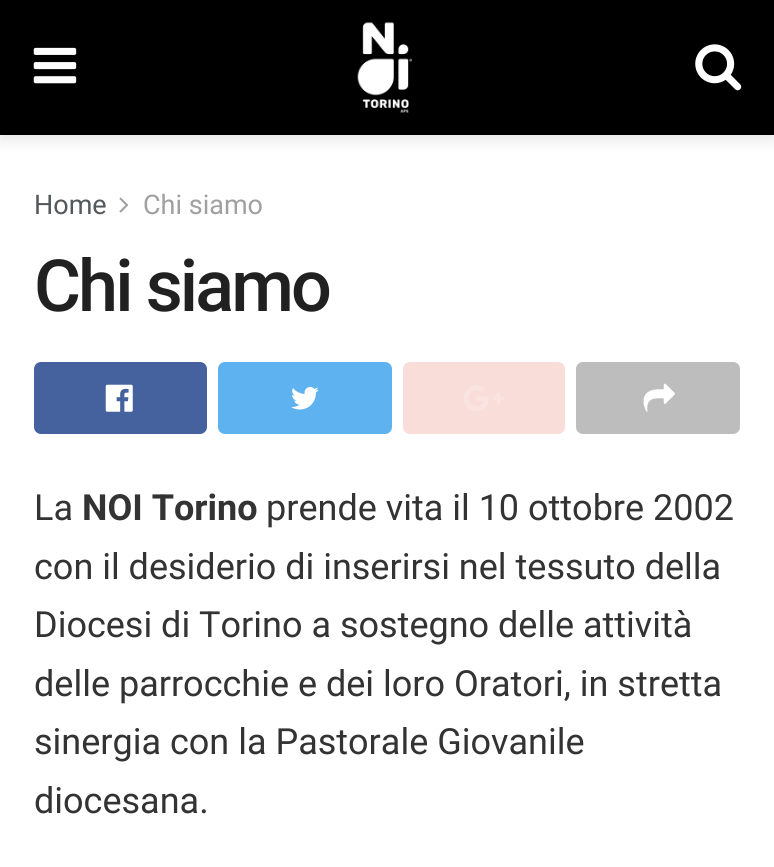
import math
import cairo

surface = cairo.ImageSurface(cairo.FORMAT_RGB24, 774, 867)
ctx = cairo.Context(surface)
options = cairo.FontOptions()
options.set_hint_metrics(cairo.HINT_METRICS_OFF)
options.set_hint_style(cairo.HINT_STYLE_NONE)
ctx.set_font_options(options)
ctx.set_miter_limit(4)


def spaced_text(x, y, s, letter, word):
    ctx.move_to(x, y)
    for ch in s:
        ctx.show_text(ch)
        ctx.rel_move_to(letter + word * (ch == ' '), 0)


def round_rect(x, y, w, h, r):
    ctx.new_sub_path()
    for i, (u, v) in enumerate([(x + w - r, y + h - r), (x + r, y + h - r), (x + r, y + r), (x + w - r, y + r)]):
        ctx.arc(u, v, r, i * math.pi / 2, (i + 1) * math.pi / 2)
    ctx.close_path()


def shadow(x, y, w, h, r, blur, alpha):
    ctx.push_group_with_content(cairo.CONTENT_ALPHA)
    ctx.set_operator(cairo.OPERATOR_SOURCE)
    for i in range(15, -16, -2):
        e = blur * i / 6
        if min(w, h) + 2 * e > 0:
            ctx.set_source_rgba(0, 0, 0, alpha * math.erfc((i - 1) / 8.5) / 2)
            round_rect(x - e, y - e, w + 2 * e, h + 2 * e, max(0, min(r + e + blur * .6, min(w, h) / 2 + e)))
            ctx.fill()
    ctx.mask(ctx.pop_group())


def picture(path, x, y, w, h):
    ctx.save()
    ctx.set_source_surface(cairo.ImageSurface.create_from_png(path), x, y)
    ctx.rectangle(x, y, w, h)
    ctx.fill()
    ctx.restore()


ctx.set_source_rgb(1, 1, 1)
ctx.paint()
ctx.set_source_rgb(0, 0, 0)
shadow(0, 5, 774, 135, 0, 7, 0.1)
ctx.set_source_rgb(0, 0, 0)
ctx.rectangle(0, 0, 774, 135)
ctx.fill()
picture("img1.png", 33, 47, 44, 37)
picture("img2.png", 357, 22, 55, 91)
picture("img3.png", 695, 44, 47, 47)
ctx.select_font_face("Roboto")
ctx.set_font_size(27)
ctx.set_source_rgb(0.325, 0.345, 0.361)
ctx.move_to(34, 214)
ctx.show_text("Home")
picture("img4.png", 119, 197, 10, 16)
ctx.set_source_rgb(0.627, 0.627, 0.627)
ctx.move_to(143, 214)
ctx.show_text("Chi siamo")
ctx.select_font_face("Roboto Medium")
ctx.set_font_size(72)
ctx.set_source_rgb(0.129, 0.129, 0.129)
spaced_text(34, 311, "Chi siamo", -2.9, 0)
ctx.set_source_rgb(0.271, 0.384, 0.624)
round_rect(34, 362, 173, 72, 7)
ctx.fill()
picture("img5.png", 105, 384, 28, 28)
ctx.set_source_rgb(0.369, 0.698, 0.937)
round_rect(218, 362, 174, 72, 7)
ctx.fill()
picture("img6.png", 291, 387, 28, 23)
ctx.set_source_rgb(0.976, 0.867, 0.851)
round_rect(403, 362, 162, 72, 7)
ctx.fill()
picture("img7.png", 464, 385, 40, 26)
ctx.set_source_rgb(0.741, 0.741, 0.741)
round_rect(576, 362, 164, 72, 7)
ctx.fill()
picture("img8.png", 643, 383, 32, 29)
ctx.select_font_face("Roboto")
ctx.set_font_size(36)
ctx.set_source_rgb(0.2, 0.2, 0.2)
ctx.move_to(34, 520)
ctx.show_text("La")
ctx.select_font_face("Roboto", cairo.FONT_SLANT_NORMAL, cairo.FONT_WEIGHT_BOLD)
ctx.move_to(82, 520)
ctx.show_text("NOI Torino")
ctx.select_font_face("Roboto")
ctx.move_to(266, 520)
ctx.show_text("prende vita il 10 ottobre 2002")
ctx.move_to(34, 579)
ctx.show_text("con il desiderio di inserirsi nel tessuto della")
ctx.move_to(34, 637)
ctx.show_text("Diocesi di Torino a sostegno delle attività")
ctx.move_to(34, 696)
ctx.show_text("delle parrocchie e dei loro Oratori, in stretta")
ctx.move_to(34, 754)
ctx.show_text("sinergia con la Pastorale Giovanile")
ctx.move_to(34, 813)
ctx.show_text("diocesana.")
surface.write_to_png("page.png")
